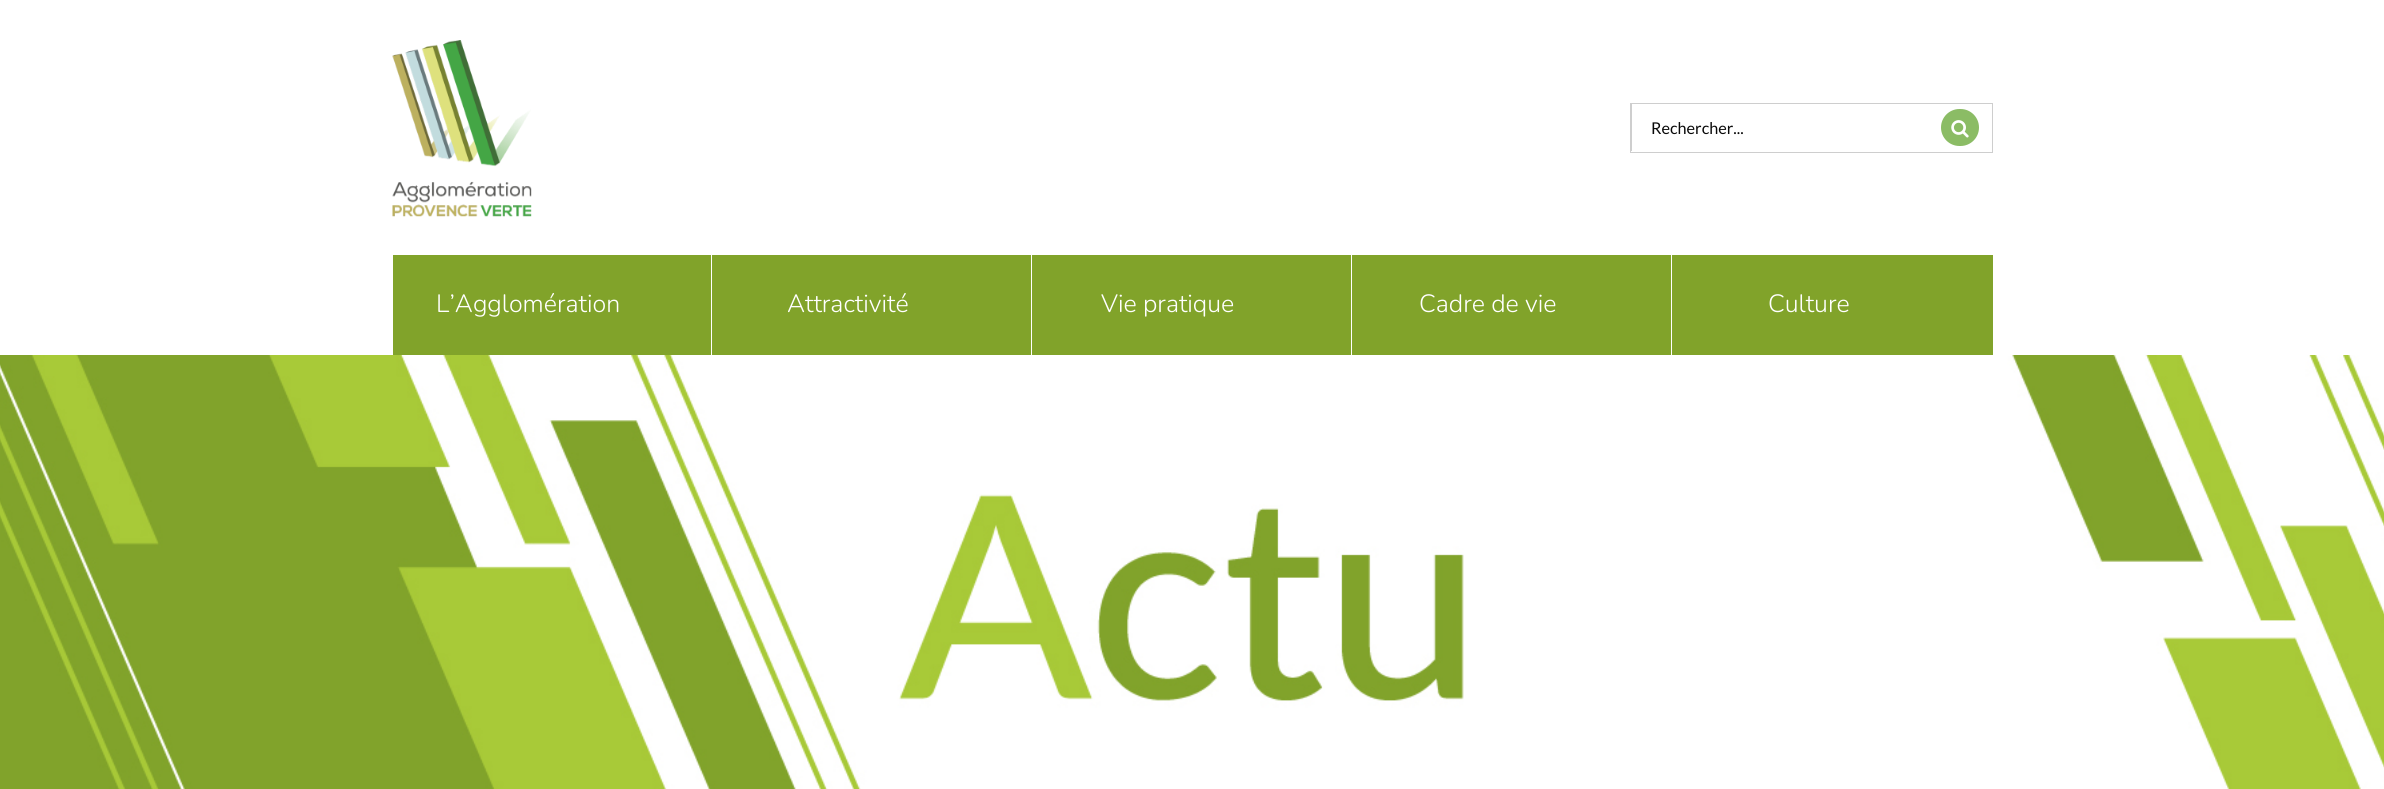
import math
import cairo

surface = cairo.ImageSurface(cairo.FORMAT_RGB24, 2384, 789)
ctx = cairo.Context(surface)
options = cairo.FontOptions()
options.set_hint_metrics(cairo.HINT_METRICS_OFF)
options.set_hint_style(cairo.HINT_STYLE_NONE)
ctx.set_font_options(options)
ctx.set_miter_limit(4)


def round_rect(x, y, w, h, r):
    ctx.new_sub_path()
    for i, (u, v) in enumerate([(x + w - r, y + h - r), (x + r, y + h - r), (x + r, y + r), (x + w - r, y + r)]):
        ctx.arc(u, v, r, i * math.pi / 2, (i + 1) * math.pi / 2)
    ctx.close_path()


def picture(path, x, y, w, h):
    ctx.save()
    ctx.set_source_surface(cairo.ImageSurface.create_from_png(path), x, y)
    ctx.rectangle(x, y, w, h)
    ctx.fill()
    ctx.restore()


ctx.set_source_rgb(1, 1, 1)
ctx.paint()
picture("img1.png", 392, 40, 140, 177)
ctx.rectangle(1630.5, 103.5, 362, 49)
ctx.set_source_rgb(0.808, 0.808, 0.808)
ctx.set_line_width(1)
ctx.stroke()
ctx.rectangle(1631, 104, 1, 47)
ctx.fill()
ctx.select_font_face("Lato")
ctx.set_font_size(16.25)
ctx.set_source_rgb(0.039, 0.039, 0.039)
ctx.move_to(1651, 134)
ctx.show_text("Rechercher...")
ctx.set_source_rgb(0.545, 0.737, 0.396)
round_rect(1941, 109, 38, 37, 18.5)
ctx.fill()
picture("img2.png", 1951, 120, 18, 18)
ctx.set_source_rgb(0.506, 0.639, 0.165)
ctx.rectangle(393, 255, 1600, 100)
ctx.fill()
ctx.set_source_rgb(1, 1, 1)
ctx.rectangle(711, 255, 1, 100)
ctx.fill()
ctx.select_font_face("Nunito Light")
ctx.set_font_size(25)
ctx.move_to(436, 312)
ctx.show_text("L’Agglomération")
ctx.rectangle(1031, 255, 1, 100)
ctx.fill()
ctx.move_to(787, 312)
ctx.show_text("Attractivité")
ctx.rectangle(1351, 255, 1, 100)
ctx.fill()
ctx.move_to(1101, 312)
ctx.show_text("Vie pratique")
ctx.rectangle(1671, 255, 1, 100)
ctx.fill()
ctx.move_to(1419, 312)
ctx.show_text("Cadre de vie")
ctx.move_to(1768, 312)
ctx.show_text("Culture")
picture("img3.png", 0, 355, 2384, 434)
surface.write_to_png("page.png")
